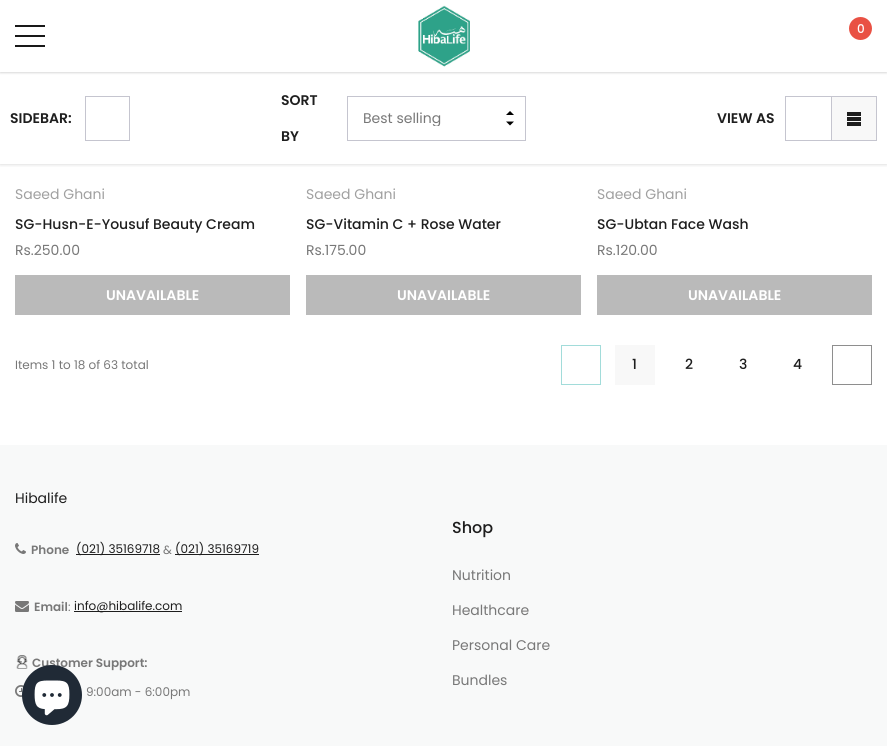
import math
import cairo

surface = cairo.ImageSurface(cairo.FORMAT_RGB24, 887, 746)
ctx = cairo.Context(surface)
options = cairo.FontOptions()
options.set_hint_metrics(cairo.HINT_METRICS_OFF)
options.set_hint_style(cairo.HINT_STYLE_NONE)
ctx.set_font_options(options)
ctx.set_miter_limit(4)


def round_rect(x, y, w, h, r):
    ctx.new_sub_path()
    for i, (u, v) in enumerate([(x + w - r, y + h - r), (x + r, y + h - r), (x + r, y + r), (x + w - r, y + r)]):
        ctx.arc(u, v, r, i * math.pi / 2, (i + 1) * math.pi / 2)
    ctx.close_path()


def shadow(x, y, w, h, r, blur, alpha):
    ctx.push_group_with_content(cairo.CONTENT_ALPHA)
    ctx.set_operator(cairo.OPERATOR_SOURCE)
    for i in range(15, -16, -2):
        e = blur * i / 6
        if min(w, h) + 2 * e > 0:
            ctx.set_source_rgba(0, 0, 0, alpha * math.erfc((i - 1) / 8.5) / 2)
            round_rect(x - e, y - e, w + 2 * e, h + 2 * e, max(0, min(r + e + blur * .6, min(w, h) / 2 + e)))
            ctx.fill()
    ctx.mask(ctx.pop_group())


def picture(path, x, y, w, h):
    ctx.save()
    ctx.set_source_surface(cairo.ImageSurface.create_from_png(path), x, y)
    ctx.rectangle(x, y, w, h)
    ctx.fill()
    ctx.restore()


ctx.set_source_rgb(1, 1, 1)
ctx.paint()
ctx.set_source_rgb(0, 0, 0)
shadow(0, 1, 887, 72, 0, 1, 0.15)
ctx.save()
ctx.rectangle(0, 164, 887, 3)
ctx.clip()
shadow(0, 72, 887, 92, 0, 2, 0.2)
ctx.restore()
ctx.set_source_rgb(1, 1, 1)
ctx.rectangle(0, 0, 887, 72)
ctx.fill()
ctx.set_source_rgb(0.098, 0.098, 0.098)
ctx.rectangle(15, 35, 30, 2)
ctx.fill()
ctx.rectangle(15, 25, 30, 2)
ctx.fill()
ctx.rectangle(15, 45, 30, 2)
ctx.fill()
picture("img1.png", 418, 5, 52, 62)
ctx.set_source_rgb(0.914, 0.318, 0.267)
ctx.arc(860.5, 28.5, 11.5, 0, 2 * math.pi)
ctx.fill()
ctx.select_font_face("Poppins Medium")
ctx.set_font_size(12)
ctx.set_source_rgb(1, 1, 1)
ctx.move_to(857, 33)
ctx.show_text("0")
ctx.select_font_face("Poppins SemiBold")
ctx.set_font_size(14)
ctx.set_source_rgb(0.118, 0.118, 0.118)
ctx.move_to(10, 123)
ctx.show_text("SIDEBAR:")
ctx.rectangle(85.5, 96.5, 44, 44)
ctx.set_source_rgb(0.773, 0.773, 0.812)
ctx.set_line_width(1)
ctx.stroke()
ctx.set_source_rgb(0.118, 0.118, 0.118)
ctx.move_to(281, 105)
ctx.show_text("SORT")
ctx.move_to(281, 141)
ctx.show_text("BY")
ctx.rectangle(347.5, 96.5, 178, 44)
ctx.set_source_rgb(0.773, 0.773, 0.812)
ctx.stroke()
ctx.save()
ctx.rectangle(363, 110, 134, 16)
ctx.clip()
ctx.select_font_face("Poppins")
ctx.set_source_rgb(0.471, 0.471, 0.471)
ctx.move_to(363, 123)
ctx.show_text("Best selling")
ctx.restore()
ctx.set_source_rgb(0, 0, 0)
ctx.new_path()
ctx.move_to(514, 115)
ctx.line_to(506, 115)
ctx.line_to(510, 111)
ctx.close_path()
ctx.move_to(506, 121.5)
ctx.line_to(514, 121.5)
ctx.line_to(510, 125.5)
ctx.close_path()
ctx.fill()
ctx.set_source_rgb(0.118, 0.118, 0.118)
ctx.move_to(717, 123)
ctx.show_text("VIEW AS")
ctx.set_source_rgb(0.969, 0.969, 0.969)
ctx.rectangle(832, 97, 44, 43)
ctx.fill()
ctx.rectangle(785.5, 96.5, 91, 44)
ctx.set_source_rgb(0.773, 0.773, 0.812)
ctx.stroke()
ctx.rectangle(831, 97, 1, 43)
ctx.fill()
ctx.set_source_rgb(0.118, 0.118, 0.118)
ctx.rectangle(847, 122, 14, 4)
ctx.fill()
ctx.rectangle(847, 117, 14, 4)
ctx.fill()
ctx.rectangle(847, 112, 14, 4)
ctx.fill()
ctx.select_font_face("Poppins")
ctx.set_source_rgb(0.627, 0.627, 0.627)
ctx.move_to(15, 199)
ctx.show_text("Saeed Ghani")
ctx.select_font_face("Poppins Medium")
ctx.set_source_rgb(0.118, 0.118, 0.118)
ctx.move_to(15, 229)
ctx.show_text("SG-Husn-E-Yousuf Beauty Cream")
ctx.select_font_face("Poppins")
ctx.set_source_rgb(0.471, 0.471, 0.471)
ctx.move_to(15, 255)
ctx.show_text("Rs.250.00")
ctx.set_source_rgb(0.729, 0.729, 0.729)
ctx.rectangle(15, 275, 275, 40)
ctx.fill()
ctx.select_font_face("Poppins SemiBold")
ctx.set_source_rgb(1, 1, 1)
ctx.move_to(106, 300)
ctx.show_text("UNAVAILABLE")
ctx.select_font_face("Poppins")
ctx.set_source_rgb(0.627, 0.627, 0.627)
ctx.move_to(306, 199)
ctx.show_text("Saeed Ghani")
ctx.select_font_face("Poppins Medium")
ctx.set_source_rgb(0.118, 0.118, 0.118)
ctx.move_to(306, 229)
ctx.show_text("SG-Vitamin C + Rose Water")
ctx.select_font_face("Poppins")
ctx.set_source_rgb(0.471, 0.471, 0.471)
ctx.move_to(306, 255)
ctx.show_text("Rs.175.00")
ctx.set_source_rgb(0.729, 0.729, 0.729)
ctx.rectangle(306, 275, 275, 40)
ctx.fill()
ctx.select_font_face("Poppins SemiBold")
ctx.set_source_rgb(1, 1, 1)
ctx.move_to(397, 300)
ctx.show_text("UNAVAILABLE")
ctx.select_font_face("Poppins")
ctx.set_source_rgb(0.627, 0.627, 0.627)
ctx.move_to(597, 199)
ctx.show_text("Saeed Ghani")
ctx.select_font_face("Poppins Medium")
ctx.set_source_rgb(0.118, 0.118, 0.118)
ctx.move_to(597, 229)
ctx.show_text("SG-Ubtan Face Wash")
ctx.select_font_face("Poppins")
ctx.set_source_rgb(0.471, 0.471, 0.471)
ctx.move_to(597, 255)
ctx.show_text("Rs.120.00")
ctx.set_source_rgb(0.729, 0.729, 0.729)
ctx.rectangle(597, 275, 275, 40)
ctx.fill()
ctx.select_font_face("Poppins SemiBold")
ctx.set_source_rgb(1, 1, 1)
ctx.move_to(688, 300)
ctx.show_text("UNAVAILABLE")
ctx.select_font_face("Poppins")
ctx.set_font_size(12)
ctx.set_source_rgb(0.471, 0.471, 0.471)
ctx.move_to(15, 369)
ctx.show_text("Items 1 to 18 of 63 total")
ctx.rectangle(561.5, 345.5, 39, 39)
ctx.set_source_rgb(0.635, 0.863, 0.855)
ctx.stroke()
ctx.set_source_rgb(0.969, 0.969, 0.969)
ctx.rectangle(615, 345, 40, 40)
ctx.fill()
ctx.select_font_face("Poppins Medium")
ctx.set_font_size(14)
ctx.set_source_rgb(0.118, 0.118, 0.118)
ctx.move_to(632, 369)
ctx.show_text("1")
ctx.move_to(685, 369)
ctx.show_text("2")
ctx.move_to(739, 369)
ctx.show_text("3")
ctx.move_to(793, 369)
ctx.show_text("4")
ctx.rectangle(832.5, 345.5, 39, 39)
ctx.set_source_rgb(0.557, 0.557, 0.557)
ctx.stroke()
ctx.set_source_rgb(0.969, 0.976, 0.976)
ctx.rectangle(0, 445, 887, 301)
ctx.fill()
ctx.select_font_face("Poppins")
ctx.set_source_rgb(0.118, 0.118, 0.118)
ctx.move_to(15, 503)
ctx.show_text("Hibalife")
picture("img2.png", 15, 543, 11, 11)
ctx.select_font_face("Poppins SemiBold")
ctx.set_font_size(12)
ctx.set_source_rgb(0.471, 0.471, 0.471)
ctx.move_to(31, 554)
ctx.show_text("Phone")
ctx.set_source_rgb(0.118, 0.118, 0.118)
ctx.rectangle(76, 554, 84, 1)
ctx.fill()
ctx.select_font_face("Poppins")
ctx.move_to(76, 553)
ctx.show_text("(021) 35169718")
ctx.set_source_rgb(0.471, 0.471, 0.471)
ctx.move_to(163, 554)
ctx.show_text("&")
ctx.set_source_rgb(0.118, 0.118, 0.118)
ctx.rectangle(175, 554, 84, 1)
ctx.fill()
ctx.move_to(175, 553)
ctx.show_text("(021) 35169719")
picture("img3.png", 15, 601, 14, 11)
ctx.select_font_face("Poppins SemiBold")
ctx.set_source_rgb(0.471, 0.471, 0.471)
ctx.move_to(34, 611)
ctx.show_text("Email")
ctx.select_font_face("Poppins")
ctx.move_to(68, 611)
ctx.show_text(":")
ctx.set_source_rgb(0.118, 0.118, 0.118)
ctx.rectangle(74, 611, 108, 1)
ctx.fill()
ctx.move_to(74, 610)
ctx.show_text("info@hibalife.com")
picture("img4.png", 16, 655, 12, 14)
ctx.select_font_face("Poppins SemiBold")
ctx.set_source_rgb(0.471, 0.471, 0.471)
ctx.move_to(32, 667)
ctx.show_text("Customer Support:")
picture("img5.png", 15, 685, 9, 12)
ctx.select_font_face("Poppins")
ctx.move_to(86, 696)
ctx.show_text("9:00am - 6:00pm")
ctx.select_font_face("Poppins Medium")
ctx.set_font_size(16)
ctx.set_source_rgb(0.118, 0.118, 0.118)
ctx.move_to(452, 533)
ctx.show_text("Shop")
ctx.select_font_face("Poppins")
ctx.set_font_size(14)
ctx.set_source_rgb(0.471, 0.471, 0.471)
ctx.move_to(452, 580)
ctx.show_text("Nutrition")
ctx.move_to(452, 615)
ctx.show_text("Healthcare")
ctx.move_to(452, 650)
ctx.show_text("Personal Care")
ctx.move_to(452, 685)
ctx.show_text("Bundles")
ctx.set_source_rgb(0.125, 0.165, 0.212)
ctx.new_path()
ctx.arc(52, 695, 30, 0, 2 * math.pi)
ctx.fill()
picture("img6.png", 34, 680, 36, 36)
surface.write_to_png("page.png")
